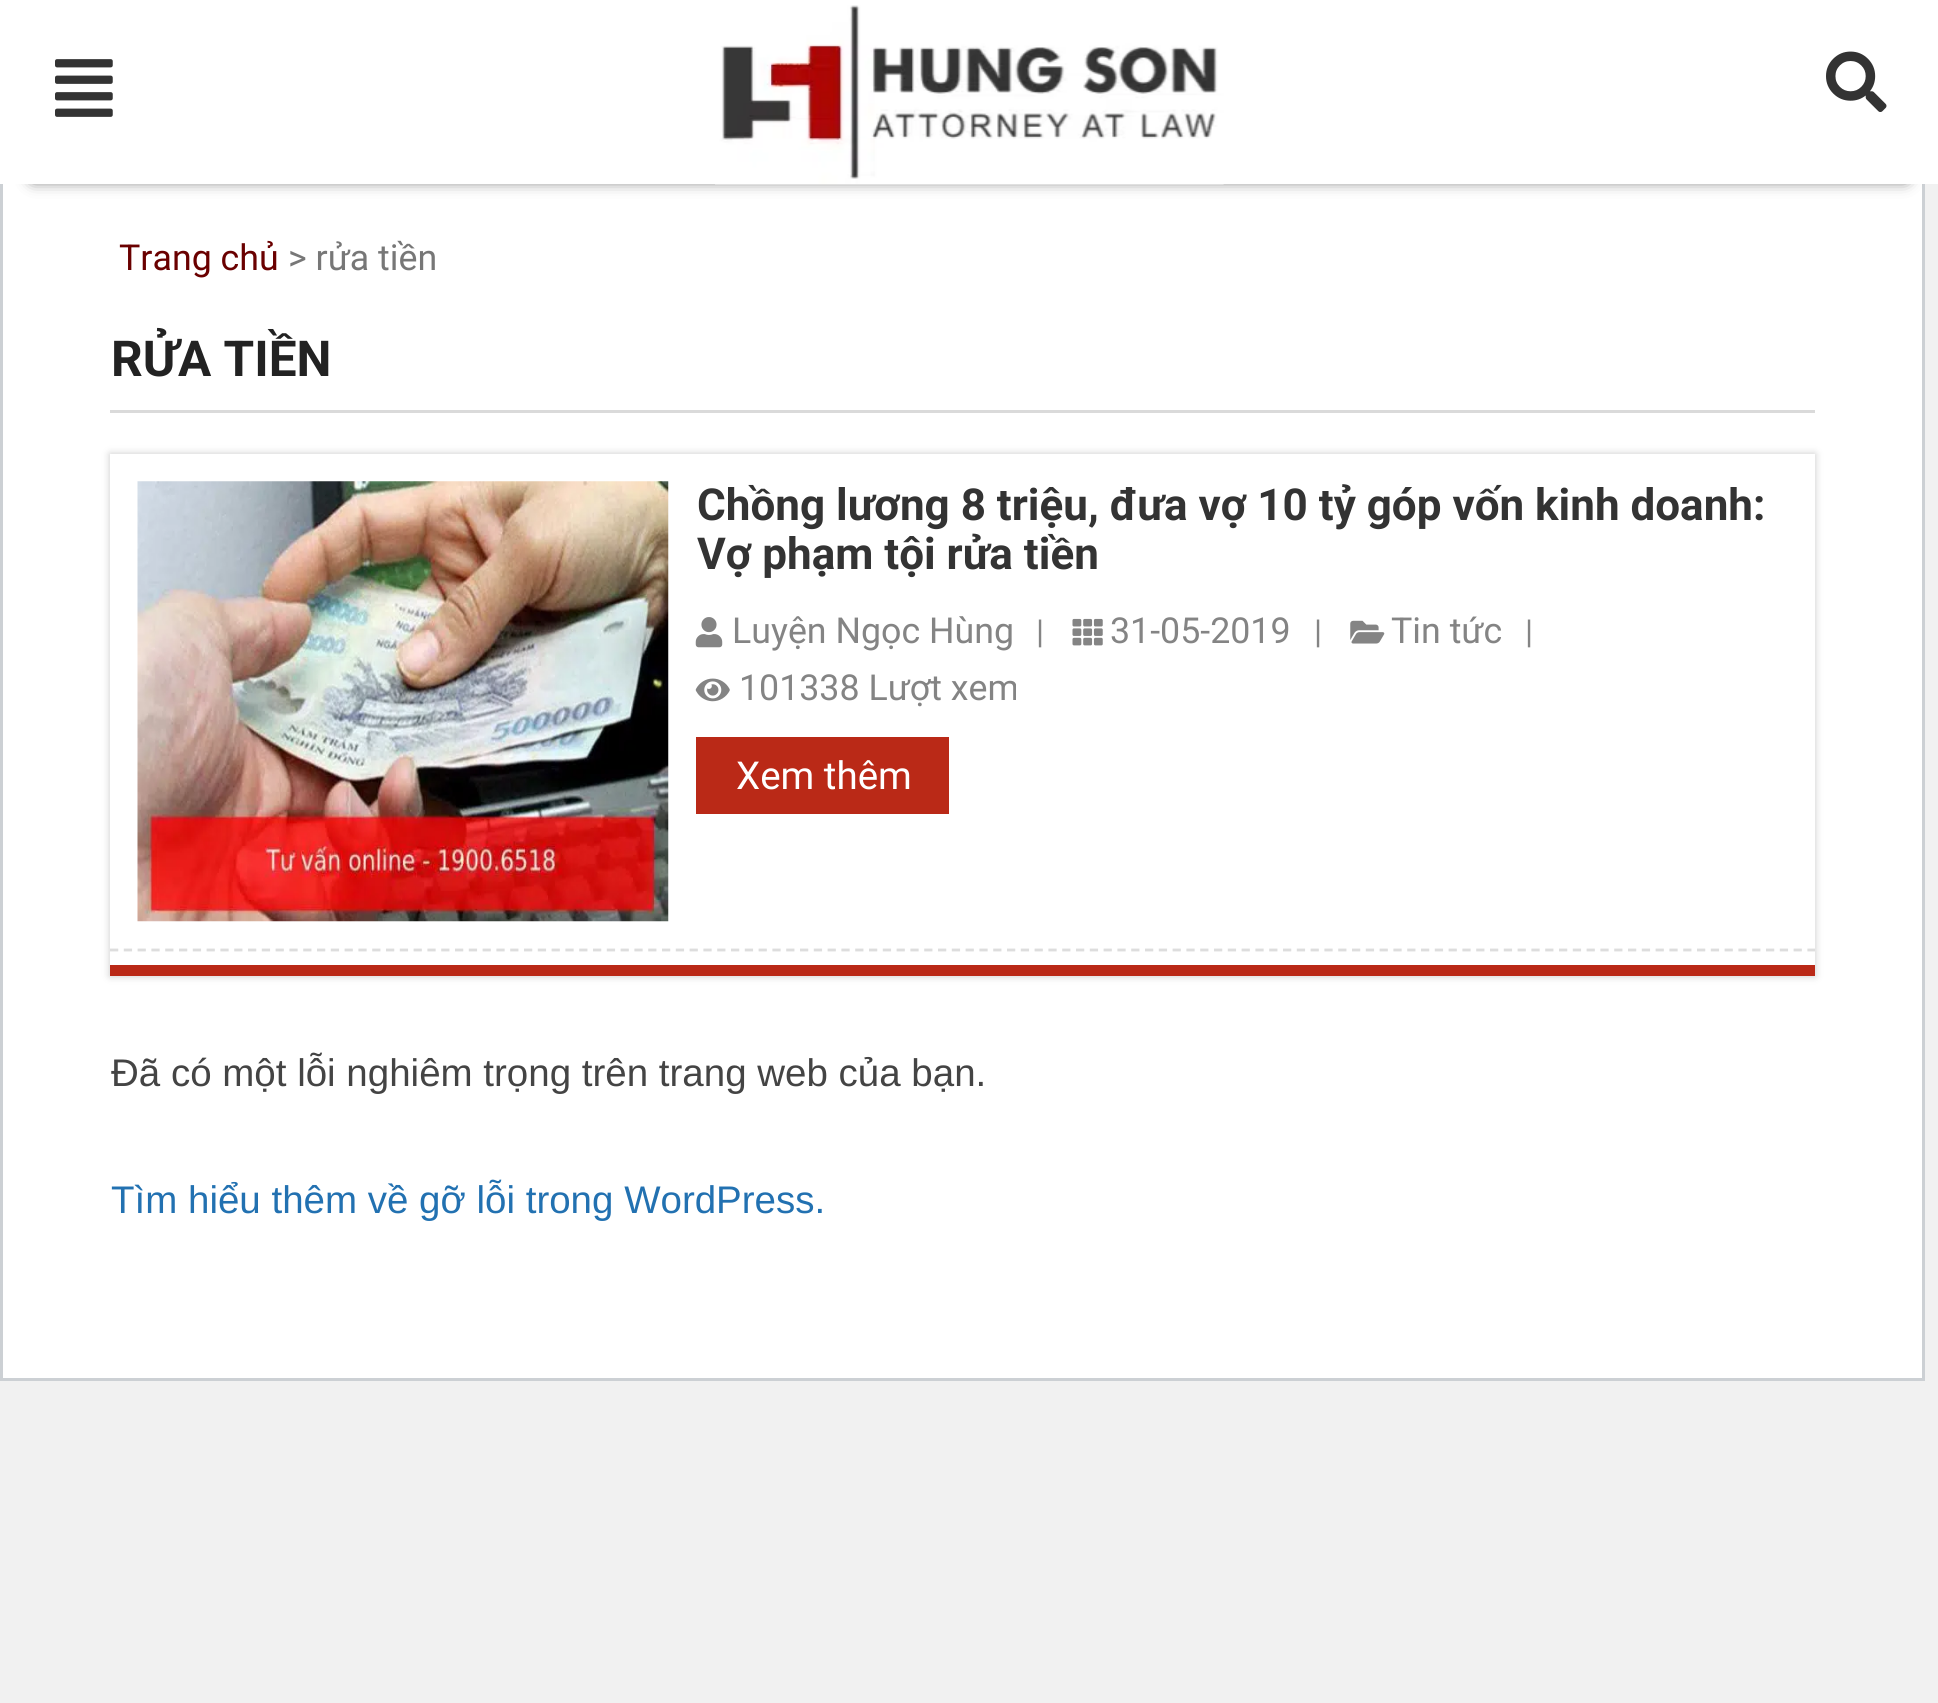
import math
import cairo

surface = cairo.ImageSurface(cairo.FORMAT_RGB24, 1938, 1703)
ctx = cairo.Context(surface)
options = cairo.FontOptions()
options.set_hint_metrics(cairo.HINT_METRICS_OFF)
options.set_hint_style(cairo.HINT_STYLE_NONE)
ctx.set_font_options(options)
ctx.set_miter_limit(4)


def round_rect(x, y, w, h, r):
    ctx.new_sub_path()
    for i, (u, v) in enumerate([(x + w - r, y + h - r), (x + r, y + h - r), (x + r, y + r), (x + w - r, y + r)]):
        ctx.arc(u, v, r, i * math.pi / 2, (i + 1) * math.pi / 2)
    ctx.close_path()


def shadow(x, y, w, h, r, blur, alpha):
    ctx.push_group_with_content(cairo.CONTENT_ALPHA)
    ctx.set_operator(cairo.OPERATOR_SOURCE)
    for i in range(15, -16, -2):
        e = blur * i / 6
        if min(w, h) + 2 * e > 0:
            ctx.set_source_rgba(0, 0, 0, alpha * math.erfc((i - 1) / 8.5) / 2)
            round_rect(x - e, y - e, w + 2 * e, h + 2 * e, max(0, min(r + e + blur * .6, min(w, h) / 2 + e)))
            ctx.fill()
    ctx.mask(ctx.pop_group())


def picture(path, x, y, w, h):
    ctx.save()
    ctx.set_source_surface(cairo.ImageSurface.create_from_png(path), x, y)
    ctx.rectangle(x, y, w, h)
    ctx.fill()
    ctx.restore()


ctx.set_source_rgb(0.945, 0.945, 0.945)
ctx.paint()
ctx.set_source_rgb(1, 1, 1)
ctx.rectangle(3, 184, 1919, 1194)
ctx.fill()
ctx.rectangle(1.5, 139.5, 1922, 1240)
ctx.set_source_rgb(0.8, 0.816, 0.831)
ctx.set_line_width(3)
ctx.stroke()
ctx.set_source_rgb(0.235, 0.235, 0.235)
shadow(33, 61, 1873, 118, 0, 8, 1)
ctx.set_source_rgb(1, 1, 1)
ctx.rectangle(0, 0, 1938, 184)
ctx.fill()
picture("img1.png", 55, 59, 58, 58)
picture("img2.png", 715, 5, 509, 180)
picture("img3.png", 1826, 51, 61, 61)
ctx.select_font_face("Roboto")
ctx.set_font_size(35.75)
ctx.set_source_rgb(0.416, 0, 0)
ctx.move_to(119, 270)
ctx.show_text("Trang chủ")
ctx.set_source_rgb(0.467, 0.467, 0.467)
ctx.move_to(288, 270)
ctx.show_text("> rửa tiền")
ctx.set_source_rgb(0.855, 0.855, 0.855)
ctx.rectangle(110, 410, 1705, 3)
ctx.fill()
ctx.select_font_face("Roboto", cairo.FONT_SLANT_NORMAL, cairo.FONT_WEIGHT_BOLD)
ctx.set_font_size(49.5)
ctx.set_source_rgb(0.133, 0.133, 0.133)
ctx.move_to(111, 376)
ctx.show_text("RỬA TIỀN")
ctx.save()
ctx.set_fill_rule(cairo.FILL_RULE_EVEN_ODD)
ctx.new_path()
ctx.move_to(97, 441)
ctx.line_to(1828, 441)
ctx.line_to(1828, 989)
ctx.line_to(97, 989)
ctx.close_path()
ctx.move_to(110, 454)
ctx.line_to(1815, 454)
ctx.line_to(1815, 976)
ctx.line_to(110, 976)
ctx.close_path()
ctx.clip()
ctx.set_source_rgb(0.792, 0.792, 0.792)
shadow(110, 454, 1705, 522, 0, 4, 1)
ctx.restore()
ctx.set_source_rgb(0.729, 0.161, 0.09)
ctx.rectangle(110, 965, 1705, 11)
ctx.fill()
ctx.new_path()
ctx.move_to(110, 950)
ctx.line_to(1815, 950)
ctx.set_source_rgb(0.867, 0.867, 0.867)
ctx.set_line_width(2.8)
ctx.set_dash([8.25, 5.55])
ctx.stroke()
picture("img4.png", 137, 481, 532, 441)
ctx.set_font_size(44)
ctx.set_source_rgb(0.2, 0.2, 0.2)
ctx.move_to(697, 520)
ctx.show_text("Chồng lương 8 triệu, đưa vợ 10 tỷ góp vốn kinh doanh:")
ctx.move_to(697, 569)
ctx.show_text("Vợ phạm tội rửa tiền")
picture("img5.png", 695, 617, 28, 31)
ctx.select_font_face("Roboto")
ctx.set_font_size(35.75)
ctx.set_source_rgb(0.518, 0.518, 0.518)
ctx.move_to(732, 643)
ctx.show_text("Luyện Ngọc Hùng")
ctx.set_font_size(33)
ctx.move_to(1036, 643)
ctx.show_text("|")
picture("img6.png", 1072, 618, 31, 28)
ctx.set_font_size(35.75)
ctx.move_to(1110, 643)
ctx.show_text("31-05-2019")
ctx.set_font_size(33)
ctx.move_to(1314, 643)
ctx.show_text("|")
picture("img7.png", 1350, 620, 35, 24)
ctx.set_font_size(35.75)
ctx.move_to(1391, 643)
ctx.show_text("Tin tức")
ctx.set_font_size(33)
ctx.move_to(1525, 643)
ctx.show_text("|")
picture("img8.png", 695, 678, 35, 24)
ctx.set_font_size(35.75)
ctx.move_to(739, 700)
ctx.show_text("101338 Lượt xem")
ctx.set_source_rgb(0.729, 0.161, 0.09)
ctx.rectangle(696, 737, 253, 77)
ctx.fill()
ctx.set_font_size(38.5)
ctx.set_source_rgb(1, 1, 1)
ctx.move_to(736, 789)
ctx.show_text("Xem thêm")
ctx.select_font_face("Liberation Sans")
ctx.set_source_rgb(0.267, 0.267, 0.267)
ctx.move_to(111, 1086)
ctx.show_text("Đã có một lỗi nghiêm trọng trên trang web của bạn.")
ctx.set_source_rgb(0.133, 0.443, 0.694)
ctx.move_to(111, 1213)
ctx.show_text("Tìm hiểu thêm về gỡ lỗi trong WordPress.")
surface.write_to_png("page.png")
